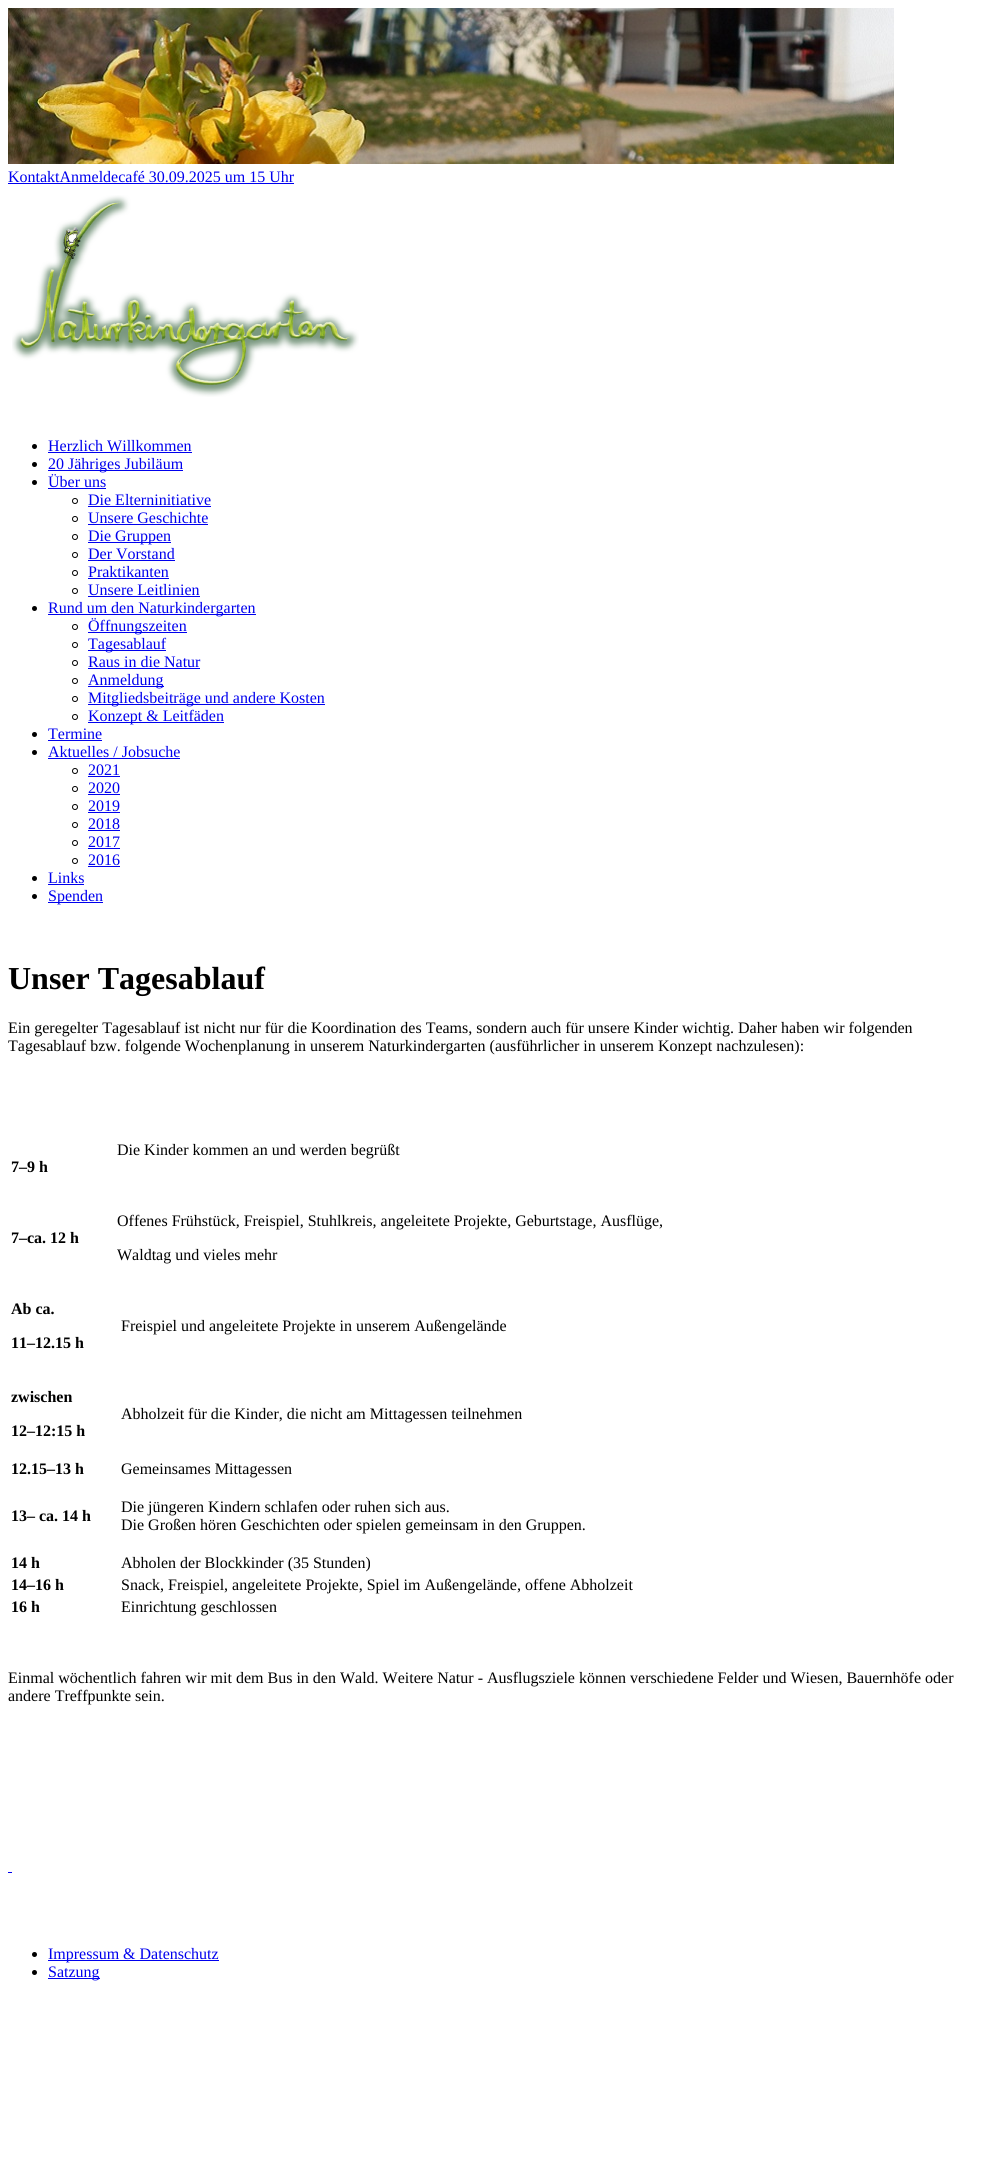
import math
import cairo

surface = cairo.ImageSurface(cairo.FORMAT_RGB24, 987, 2157)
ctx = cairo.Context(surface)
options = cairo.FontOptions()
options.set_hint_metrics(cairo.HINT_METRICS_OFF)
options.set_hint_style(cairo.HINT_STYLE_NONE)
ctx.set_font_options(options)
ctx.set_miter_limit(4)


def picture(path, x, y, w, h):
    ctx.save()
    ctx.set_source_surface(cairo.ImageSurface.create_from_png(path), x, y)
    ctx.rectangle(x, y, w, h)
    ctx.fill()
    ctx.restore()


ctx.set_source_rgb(1, 1, 1)
ctx.paint()
picture("img1.png", 8, 8, 886, 156)
ctx.select_font_face("Liberation Serif")
ctx.set_font_size(16)
ctx.set_source_rgb(0, 0, 0.933)
ctx.move_to(8, 182)
ctx.show_text("KontaktAnmeldecafé 30.09.2025 um 15 Uhr")
ctx.rectangle(8, 183, 286, 1)
ctx.fill()
picture("img2.png", 12, 195, 347, 202)
ctx.set_source_rgb(0, 0, 0)
ctx.arc(34.5, 446.5, 2.5, 0, 2 * math.pi)
ctx.fill()
ctx.set_source_rgb(0, 0, 0.933)
ctx.move_to(48, 451)
ctx.show_text("Herzlich Willkommen")
ctx.rectangle(48, 452, 144, 1)
ctx.fill()
ctx.set_source_rgb(0, 0, 0)
ctx.arc(34.5, 464.5, 2.5, 0, 2 * math.pi)
ctx.fill()
ctx.set_source_rgb(0, 0, 0.933)
ctx.rectangle(48, 470, 135, 1)
ctx.fill()
ctx.move_to(48, 469)
ctx.show_text("20 Jähriges Jubiläum")
ctx.set_source_rgb(0, 0, 0)
ctx.new_path()
ctx.arc(34.5, 482.5, 2.5, 0, 2 * math.pi)
ctx.fill()
ctx.set_source_rgb(0, 0, 0.933)
ctx.move_to(48, 487)
ctx.show_text("Über uns")
ctx.rectangle(48, 488, 58, 1)
ctx.fill()
ctx.arc(75, 501, 2.5, 0, 2 * math.pi)
ctx.set_source_rgb(0, 0, 0)
ctx.set_line_width(1)
ctx.stroke()
ctx.set_source_rgb(0, 0, 0.933)
ctx.move_to(88, 505)
ctx.show_text("Die Elterninitiative")
ctx.rectangle(88, 506, 123, 1)
ctx.fill()
ctx.arc(75, 519, 2.5, 0, 2 * math.pi)
ctx.set_source_rgb(0, 0, 0)
ctx.stroke()
ctx.set_source_rgb(0, 0, 0.933)
ctx.move_to(88, 523)
ctx.show_text("Unsere Geschichte")
ctx.rectangle(88, 524, 120, 1)
ctx.fill()
ctx.arc(75, 537, 2.5, 0, 2 * math.pi)
ctx.set_source_rgb(0, 0, 0)
ctx.stroke()
ctx.set_source_rgb(0, 0, 0.933)
ctx.rectangle(88, 542, 83, 1)
ctx.fill()
ctx.move_to(88, 541)
ctx.show_text("Die Gruppen")
ctx.new_path()
ctx.arc(75, 555, 2.5, 0, 2 * math.pi)
ctx.set_source_rgb(0, 0, 0)
ctx.stroke()
ctx.set_source_rgb(0, 0, 0.933)
ctx.move_to(88, 559)
ctx.show_text("Der Vorstand")
ctx.rectangle(88, 560, 87, 1)
ctx.fill()
ctx.arc(75, 573, 2.5, 0, 2 * math.pi)
ctx.set_source_rgb(0, 0, 0)
ctx.stroke()
ctx.set_source_rgb(0, 0, 0.933)
ctx.move_to(88, 577)
ctx.show_text("Praktikanten")
ctx.rectangle(88, 578, 81, 1)
ctx.fill()
ctx.arc(75, 591, 2.5, 0, 2 * math.pi)
ctx.set_source_rgb(0, 0, 0)
ctx.stroke()
ctx.set_source_rgb(0, 0, 0.933)
ctx.move_to(88, 595)
ctx.show_text("Unsere Leitlinien")
ctx.rectangle(88, 596, 112, 1)
ctx.fill()
ctx.set_source_rgb(0, 0, 0)
ctx.arc(34.5, 608.5, 2.5, 0, 2 * math.pi)
ctx.fill()
ctx.set_source_rgb(0, 0, 0.933)
ctx.rectangle(48, 614, 208, 1)
ctx.fill()
ctx.move_to(48, 613)
ctx.show_text("Rund um den Naturkindergarten")
ctx.new_path()
ctx.arc(75, 627, 2.5, 0, 2 * math.pi)
ctx.set_source_rgb(0, 0, 0)
ctx.stroke()
ctx.set_source_rgb(0, 0, 0.933)
ctx.rectangle(88, 632, 99, 1)
ctx.fill()
ctx.move_to(88, 631)
ctx.show_text("Öffnungszeiten")
ctx.new_path()
ctx.arc(75, 645, 2.5, 0, 2 * math.pi)
ctx.set_source_rgb(0, 0, 0)
ctx.stroke()
ctx.set_source_rgb(0, 0, 0.933)
ctx.rectangle(88, 650, 78, 1)
ctx.fill()
ctx.move_to(88, 649)
ctx.show_text("Tagesablauf")
ctx.new_path()
ctx.arc(75, 663, 2.5, 0, 2 * math.pi)
ctx.set_source_rgb(0, 0, 0)
ctx.stroke()
ctx.set_source_rgb(0, 0, 0.933)
ctx.move_to(88, 667)
ctx.show_text("Raus in die Natur")
ctx.rectangle(88, 668, 112, 1)
ctx.fill()
ctx.arc(75, 681, 2.5, 0, 2 * math.pi)
ctx.set_source_rgb(0, 0, 0)
ctx.stroke()
ctx.set_source_rgb(0, 0, 0.933)
ctx.rectangle(88, 686, 76, 1)
ctx.fill()
ctx.move_to(88, 685)
ctx.show_text("Anmeldung")
ctx.new_path()
ctx.arc(75, 699, 2.5, 0, 2 * math.pi)
ctx.set_source_rgb(0, 0, 0)
ctx.stroke()
ctx.set_source_rgb(0, 0, 0.933)
ctx.rectangle(88, 704, 237, 1)
ctx.fill()
ctx.move_to(88, 703)
ctx.show_text("Mitgliedsbeiträge und andere Kosten")
ctx.new_path()
ctx.arc(75, 717, 2.5, 0, 2 * math.pi)
ctx.set_source_rgb(0, 0, 0)
ctx.stroke()
ctx.set_source_rgb(0, 0, 0.933)
ctx.rectangle(88, 722, 136, 1)
ctx.fill()
ctx.move_to(88, 721)
ctx.show_text("Konzept & Leitfäden")
ctx.set_source_rgb(0, 0, 0)
ctx.new_path()
ctx.arc(34.5, 734.5, 2.5, 0, 2 * math.pi)
ctx.fill()
ctx.set_source_rgb(0, 0, 0.933)
ctx.move_to(48, 739)
ctx.show_text("Termine")
ctx.rectangle(48, 740, 54, 1)
ctx.fill()
ctx.set_source_rgb(0, 0, 0)
ctx.arc(34.5, 752.5, 2.5, 0, 2 * math.pi)
ctx.fill()
ctx.set_source_rgb(0, 0, 0.933)
ctx.move_to(48, 757)
ctx.show_text("Aktuelles / Jobsuche")
ctx.rectangle(48, 758, 132, 1)
ctx.fill()
ctx.arc(75, 771, 2.5, 0, 2 * math.pi)
ctx.set_source_rgb(0, 0, 0)
ctx.stroke()
ctx.set_source_rgb(0, 0, 0.933)
ctx.move_to(88, 775)
ctx.show_text("2021")
ctx.rectangle(88, 776, 32, 1)
ctx.fill()
ctx.arc(75, 789, 2.5, 0, 2 * math.pi)
ctx.set_source_rgb(0, 0, 0)
ctx.stroke()
ctx.set_source_rgb(0, 0, 0.933)
ctx.move_to(88, 793)
ctx.show_text("2020")
ctx.rectangle(88, 794, 32, 1)
ctx.fill()
ctx.arc(75, 807, 2.5, 0, 2 * math.pi)
ctx.set_source_rgb(0, 0, 0)
ctx.stroke()
ctx.set_source_rgb(0, 0, 0.933)
ctx.move_to(88, 811)
ctx.show_text("2019")
ctx.rectangle(88, 812, 32, 1)
ctx.fill()
ctx.arc(75, 825, 2.5, 0, 2 * math.pi)
ctx.set_source_rgb(0, 0, 0)
ctx.stroke()
ctx.set_source_rgb(0, 0, 0.933)
ctx.move_to(88, 829)
ctx.show_text("2018")
ctx.rectangle(88, 830, 32, 1)
ctx.fill()
ctx.arc(75, 843, 2.5, 0, 2 * math.pi)
ctx.set_source_rgb(0, 0, 0)
ctx.stroke()
ctx.set_source_rgb(0, 0, 0.933)
ctx.move_to(88, 847)
ctx.show_text("2017")
ctx.rectangle(88, 848, 32, 1)
ctx.fill()
ctx.arc(75, 861, 2.5, 0, 2 * math.pi)
ctx.set_source_rgb(0, 0, 0)
ctx.stroke()
ctx.set_source_rgb(0, 0, 0.933)
ctx.move_to(88, 865)
ctx.show_text("2016")
ctx.rectangle(88, 866, 32, 1)
ctx.fill()
ctx.set_source_rgb(0, 0, 0)
ctx.arc(34.5, 878.5, 2.5, 0, 2 * math.pi)
ctx.fill()
ctx.set_source_rgb(0, 0, 0.933)
ctx.move_to(48, 883)
ctx.show_text("Links")
ctx.rectangle(48, 884, 36, 1)
ctx.fill()
ctx.set_source_rgb(0, 0, 0)
ctx.arc(34.5, 896.5, 2.5, 0, 2 * math.pi)
ctx.fill()
ctx.set_source_rgb(0, 0, 0.933)
ctx.rectangle(48, 902, 55, 1)
ctx.fill()
ctx.move_to(48, 901)
ctx.show_text("Spenden")
ctx.select_font_face("Liberation Serif", cairo.FONT_SLANT_NORMAL, cairo.FONT_WEIGHT_BOLD)
ctx.set_font_size(32)
ctx.set_source_rgb(0, 0, 0)
ctx.move_to(8, 989)
ctx.show_text("Unser Tagesablauf")
ctx.select_font_face("Liberation Serif")
ctx.set_font_size(16)
ctx.move_to(8, 1033)
ctx.show_text("Ein geregelter Tagesablauf ist nicht nur für die Koordination des Teams, sondern auch für unsere Kinder wichtig. Daher haben wir folgenden")
ctx.move_to(8, 1051)
ctx.show_text("Tagesablauf bzw. folgende Wochenplanung in unserem Naturkindergarten (ausführlicher in unserem Konzept nachzulesen):")
ctx.move_to(117, 1155)
ctx.show_text("Die Kinder kommen an und werden begrüßt")
ctx.select_font_face("Liberation Serif", cairo.FONT_SLANT_NORMAL, cairo.FONT_WEIGHT_BOLD)
ctx.move_to(11, 1172)
ctx.show_text("7–9 h")
ctx.move_to(11, 1243)
ctx.show_text("7–ca. 12 h")
ctx.select_font_face("Liberation Serif")
ctx.move_to(117, 1226)
ctx.show_text("Offenes Frühstück, Freispiel, Stuhlkreis, angeleitete Projekte, Geburtstage, Ausflüge,")
ctx.move_to(117, 1260)
ctx.show_text("Waldtag und vieles mehr")
ctx.select_font_face("Liberation Serif", cairo.FONT_SLANT_NORMAL, cairo.FONT_WEIGHT_BOLD)
ctx.move_to(11, 1314)
ctx.show_text("Ab ca.")
ctx.move_to(11, 1348)
ctx.show_text("11–12.15 h")
ctx.select_font_face("Liberation Serif")
ctx.move_to(121, 1331)
ctx.show_text("Freispiel und angeleitete Projekte in unserem Außengelände")
ctx.select_font_face("Liberation Serif", cairo.FONT_SLANT_NORMAL, cairo.FONT_WEIGHT_BOLD)
ctx.move_to(11, 1402)
ctx.show_text("zwischen")
ctx.move_to(11, 1436)
ctx.show_text("12–12:15 h")
ctx.select_font_face("Liberation Serif")
ctx.move_to(121, 1419)
ctx.show_text("Abholzeit für die Kinder, die nicht am Mittagessen teilnehmen")
ctx.select_font_face("Liberation Serif", cairo.FONT_SLANT_NORMAL, cairo.FONT_WEIGHT_BOLD)
ctx.move_to(11, 1474)
ctx.show_text("12.15–13 h")
ctx.select_font_face("Liberation Serif")
ctx.move_to(121, 1474)
ctx.show_text("Gemeinsames Mittagessen")
ctx.select_font_face("Liberation Serif", cairo.FONT_SLANT_NORMAL, cairo.FONT_WEIGHT_BOLD)
ctx.move_to(11, 1521)
ctx.show_text("13– ca. 14 h")
ctx.select_font_face("Liberation Serif")
ctx.move_to(121, 1512)
ctx.show_text("Die jüngeren Kindern schlafen oder ruhen sich aus.")
ctx.move_to(121, 1530)
ctx.show_text("Die Großen hören Geschichten oder spielen gemeinsam in den Gruppen.")
ctx.select_font_face("Liberation Serif", cairo.FONT_SLANT_NORMAL, cairo.FONT_WEIGHT_BOLD)
ctx.move_to(11, 1568)
ctx.show_text("14 h")
ctx.select_font_face("Liberation Serif")
ctx.move_to(121, 1568)
ctx.show_text("Abholen der Blockkinder (35 Stunden)")
ctx.select_font_face("Liberation Serif", cairo.FONT_SLANT_NORMAL, cairo.FONT_WEIGHT_BOLD)
ctx.move_to(11, 1590)
ctx.show_text("14–16 h")
ctx.select_font_face("Liberation Serif")
ctx.move_to(121, 1590)
ctx.show_text("Snack, Freispiel, angeleitete Projekte, Spiel im Außengelände, offene Abholzeit")
ctx.select_font_face("Liberation Serif", cairo.FONT_SLANT_NORMAL, cairo.FONT_WEIGHT_BOLD)
ctx.move_to(11, 1612)
ctx.show_text("16 h")
ctx.select_font_face("Liberation Serif")
ctx.move_to(121, 1612)
ctx.show_text("Einrichtung geschlossen")
ctx.move_to(8, 1683)
ctx.show_text("Einmal wöchentlich fahren wir mit dem Bus in den Wald. Weitere Natur - Ausflugsziele können verschiedene Felder und Wiesen, Bauernhöfe oder")
ctx.move_to(8, 1701)
ctx.show_text("andere Treffpunkte sein.")
ctx.set_source_rgb(0, 0, 0.933)
ctx.rectangle(8, 1872, 4, 1)
ctx.fill()
ctx.set_source_rgb(0, 0, 0)
ctx.arc(34.5, 1954.5, 2.5, 0, 2 * math.pi)
ctx.fill()
ctx.set_source_rgb(0, 0, 0.933)
ctx.rectangle(48, 1960, 171, 1)
ctx.fill()
ctx.move_to(48, 1959)
ctx.show_text("Impressum & Datenschutz")
ctx.set_source_rgb(0, 0, 0)
ctx.new_path()
ctx.arc(34.5, 1972.5, 2.5, 0, 2 * math.pi)
ctx.fill()
ctx.set_source_rgb(0, 0, 0.933)
ctx.rectangle(48, 1978, 52, 1)
ctx.fill()
ctx.move_to(48, 1977)
ctx.show_text("Satzung")
surface.write_to_png("page.png")
